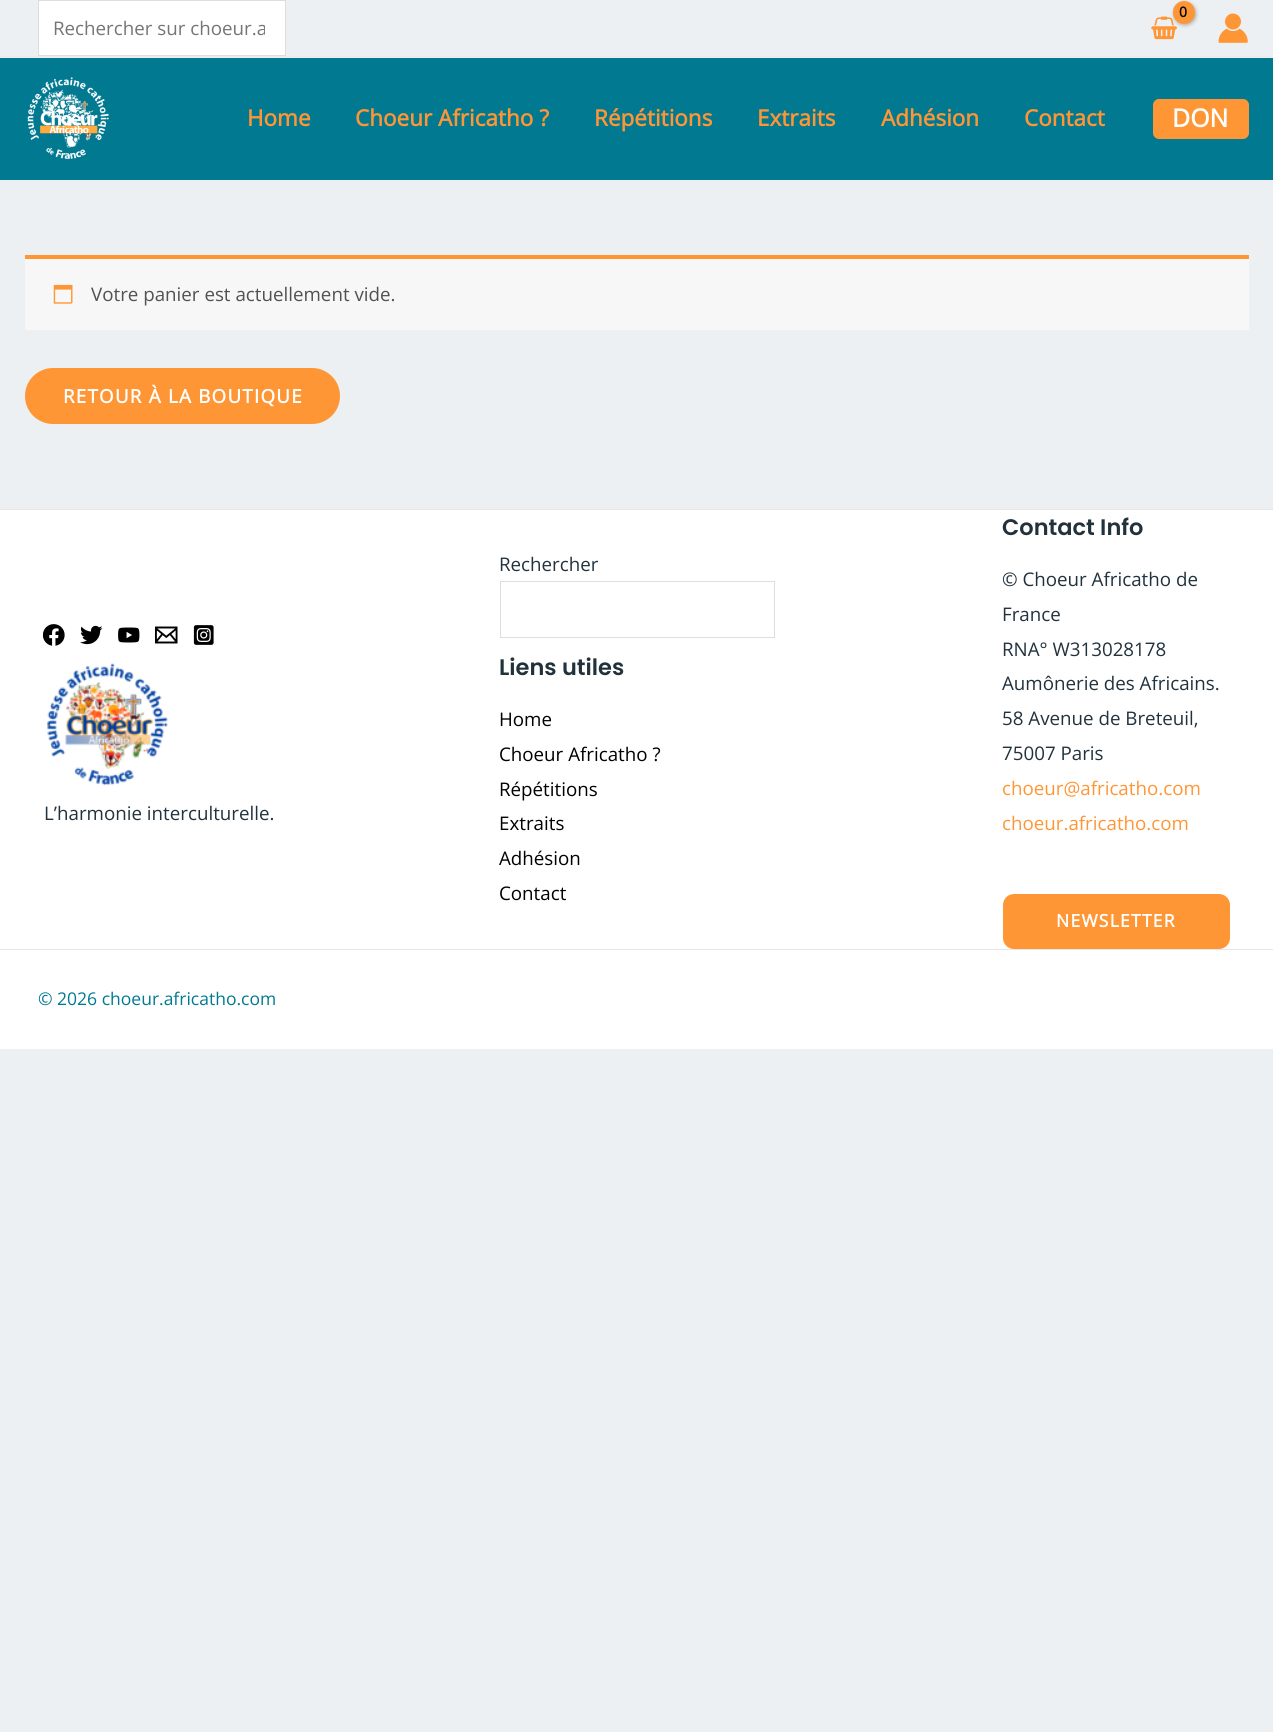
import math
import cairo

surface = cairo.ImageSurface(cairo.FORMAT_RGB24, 1273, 1732)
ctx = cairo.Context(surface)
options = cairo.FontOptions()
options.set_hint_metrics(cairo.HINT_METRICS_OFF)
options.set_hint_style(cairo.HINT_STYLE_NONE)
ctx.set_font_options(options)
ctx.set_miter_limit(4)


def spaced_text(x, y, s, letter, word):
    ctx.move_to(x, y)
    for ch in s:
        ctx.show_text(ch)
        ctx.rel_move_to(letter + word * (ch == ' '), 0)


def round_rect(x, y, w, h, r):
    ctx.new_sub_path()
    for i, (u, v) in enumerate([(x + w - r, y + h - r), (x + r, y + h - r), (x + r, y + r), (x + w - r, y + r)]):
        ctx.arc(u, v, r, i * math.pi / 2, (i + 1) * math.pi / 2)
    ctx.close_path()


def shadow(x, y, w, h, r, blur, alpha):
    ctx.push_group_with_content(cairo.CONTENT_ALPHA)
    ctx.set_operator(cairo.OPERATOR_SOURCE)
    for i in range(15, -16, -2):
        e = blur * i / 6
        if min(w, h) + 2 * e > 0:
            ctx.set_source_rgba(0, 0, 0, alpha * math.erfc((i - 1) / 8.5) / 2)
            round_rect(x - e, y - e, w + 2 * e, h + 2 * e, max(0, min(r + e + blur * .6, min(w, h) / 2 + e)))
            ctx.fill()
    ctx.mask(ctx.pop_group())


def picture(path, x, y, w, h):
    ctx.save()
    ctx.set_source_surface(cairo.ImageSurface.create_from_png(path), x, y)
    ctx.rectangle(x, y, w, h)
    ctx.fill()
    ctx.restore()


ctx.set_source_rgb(0.925, 0.941, 0.949)
ctx.paint()
ctx.set_source_rgb(0.918, 0.918, 0.918)
ctx.rectangle(0, 56, 1273, 1)
ctx.fill()
picture("img1.png", 1151, 16, 26, 24)
ctx.set_source_rgb(0, 0, 0)
shadow(1174, 3, 22, 22, 11, 2, 0.3)
ctx.set_source_rgb(1, 0.588, 0.208)
round_rect(1173, 1, 22, 23, 11)
ctx.fill()
ctx.select_font_face("Open Sans", cairo.FONT_SLANT_NORMAL, cairo.FONT_WEIGHT_BOLD)
ctx.set_font_size(14)
ctx.set_source_rgb(0, 0, 0)
spaced_text(1179, 17, "0", -1, 0)
picture("img2.png", 1218, 13, 30, 30)
ctx.set_source_rgb(1, 1, 1)
ctx.rectangle(38.5, 0.5, 247, 55)
ctx.fill_preserve()
ctx.set_source_rgb(0.867, 0.867, 0.867)
ctx.set_line_width(1)
ctx.stroke()
ctx.save()
ctx.rectangle(53, 15, 212, 25)
ctx.clip()
ctx.select_font_face("Open Sans")
ctx.set_font_size(18.75)
ctx.set_source_rgb(0.459, 0.459, 0.459)
ctx.move_to(53, 35)
ctx.show_text("Rechercher sur choeur.a")
ctx.restore()
ctx.set_source_rgb(0, 0.475, 0.569)
ctx.rectangle(0, 58, 1273, 122)
ctx.fill()
picture("img3.png", 27, 77, 82, 82)
ctx.set_font_size(22.5)
ctx.set_source_rgb(1, 0.588, 0.208)
ctx.move_to(247, 126)
ctx.show_text("Home")
ctx.move_to(355, 126)
ctx.show_text("Choeur Africatho ?")
ctx.move_to(594, 126)
ctx.show_text("Répétitions")
ctx.move_to(757, 126)
ctx.show_text("Extraits")
ctx.move_to(881, 126)
ctx.show_text("Adhésion")
ctx.move_to(1024, 126)
ctx.show_text("Contact")
round_rect(1155, 101, 92, 36, 4)
ctx.fill_preserve()
ctx.set_line_width(4)
ctx.stroke()
ctx.set_font_size(25)
ctx.set_source_rgb(1, 1, 1)
ctx.move_to(1172, 127)
ctx.show_text("DON")
ctx.set_source_rgb(0.969, 0.965, 0.969)
ctx.rectangle(25, 259, 1224, 71)
ctx.fill()
ctx.set_source_rgb(1, 0.588, 0.208)
ctx.rectangle(25, 255, 1224, 4)
ctx.fill()
picture("img4.png", 53, 284, 20, 20)
ctx.select_font_face("Open Sans")
ctx.set_font_size(18.75)
ctx.set_source_rgb(0.318, 0.318, 0.318)
ctx.move_to(91, 301)
ctx.show_text("Votre panier est actuellement vide.")
ctx.set_source_rgb(1, 0.588, 0.208)
round_rect(25, 368, 315, 56, 28)
ctx.fill()
ctx.select_font_face("Open Sans", cairo.FONT_SLANT_NORMAL, cairo.FONT_WEIGHT_BOLD)
ctx.set_source_rgb(1, 1, 1)
spaced_text(63, 403, "RETOUR À LA BOUTIQUE", 1.25, 0)
ctx.rectangle(0, 510, 1273, 539)
ctx.fill()
ctx.set_source_rgb(0.902, 0.902, 0.902)
ctx.rectangle(0, 509, 1273, 1)
ctx.fill()
picture("img5.png", 43, 624, 22, 22)
picture("img6.png", 80, 625, 23, 20)
picture("img7.png", 118, 627, 22, 16)
picture("img8.png", 155, 626, 23, 18)
picture("img9.png", 193, 625, 21, 20)
picture("img10.png", 46, 663, 122, 123)
ctx.select_font_face("Open Sans")
ctx.set_source_rgb(0.133, 0.196, 0.239)
ctx.move_to(44, 820)
ctx.show_text("L’harmonie interculturelle.")
ctx.move_to(499, 571)
ctx.show_text("Rechercher")
ctx.rectangle(500.5, 581.5, 274, 56)
ctx.set_source_rgb(0.867, 0.867, 0.867)
ctx.set_line_width(1)
ctx.stroke()
ctx.select_font_face("Poppins SemiBold")
ctx.set_font_size(22.5)
ctx.set_source_rgb(0.133, 0.196, 0.239)
ctx.move_to(499, 675)
ctx.show_text("Liens utiles")
ctx.select_font_face("Open Sans")
ctx.set_font_size(18.75)
ctx.set_source_rgb(0, 0, 0)
ctx.move_to(499, 726)
ctx.show_text("Home")
ctx.move_to(499, 761)
ctx.show_text("Choeur Africatho ?")
ctx.move_to(499, 796)
ctx.show_text("Répétitions")
ctx.move_to(499, 830)
ctx.show_text("Extraits")
ctx.move_to(499, 865)
ctx.show_text("Adhésion")
ctx.move_to(499, 900)
ctx.show_text("Contact")
ctx.select_font_face("Poppins SemiBold")
ctx.set_font_size(22.5)
ctx.set_source_rgb(0.133, 0.196, 0.239)
ctx.move_to(1002, 535)
ctx.show_text("Contact Info")
ctx.select_font_face("Open Sans")
ctx.set_font_size(18.75)
ctx.move_to(1002, 586)
ctx.show_text("© Choeur Africatho de")
ctx.move_to(1002, 621)
ctx.show_text("France")
ctx.move_to(1002, 656)
ctx.show_text("RNA° W313028178")
ctx.move_to(1002, 690)
ctx.show_text("Aumônerie des Africains.")
ctx.move_to(1002, 725)
ctx.show_text("58 Avenue de Breteuil,")
ctx.move_to(1002, 760)
ctx.show_text("75007 Paris")
ctx.set_source_rgb(1, 0.588, 0.208)
ctx.move_to(1002, 795)
ctx.show_text("choeur@africatho.com")
ctx.move_to(1002, 830)
ctx.show_text("choeur.africatho.com")
round_rect(1003, 894, 227, 55, 11)
ctx.fill()
ctx.select_font_face("Open Sans", cairo.FONT_SLANT_NORMAL, cairo.FONT_WEIGHT_BOLD)
ctx.set_font_size(17.5)
ctx.set_source_rgb(1, 1, 1)
spaced_text(1056, 927, "NEWSLETTER", 1.25, 0)
ctx.set_source_rgb(0.906, 0.906, 0.906)
ctx.rectangle(0, 949, 1273, 1)
ctx.fill()
ctx.select_font_face("Open Sans")
ctx.set_source_rgb(0, 0.475, 0.569)
ctx.move_to(38, 1005)
ctx.show_text("© 2026 choeur.africatho.com")
surface.write_to_png("page.png")
